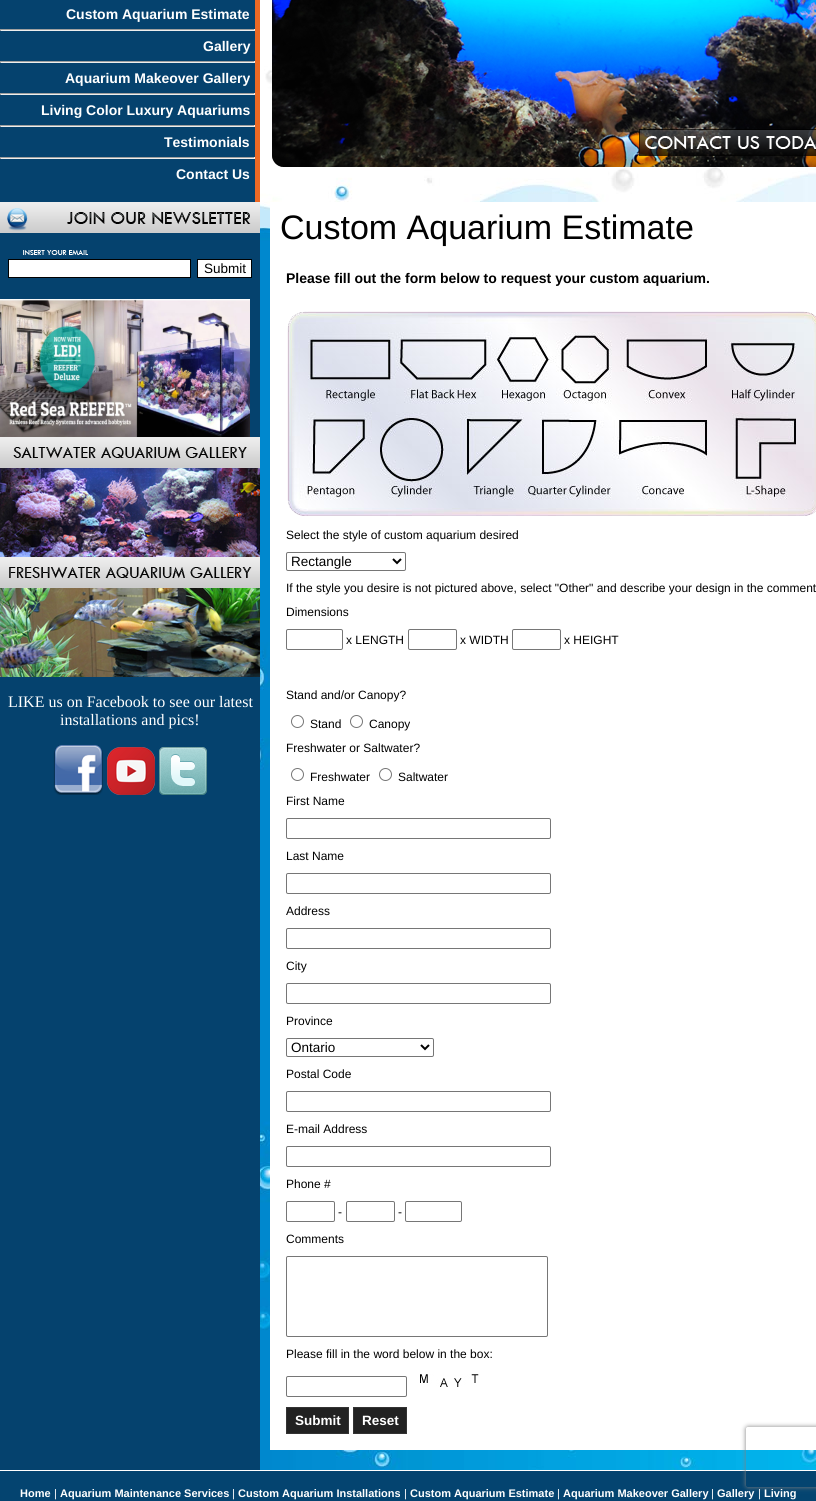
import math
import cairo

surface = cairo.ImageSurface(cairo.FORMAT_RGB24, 816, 1501)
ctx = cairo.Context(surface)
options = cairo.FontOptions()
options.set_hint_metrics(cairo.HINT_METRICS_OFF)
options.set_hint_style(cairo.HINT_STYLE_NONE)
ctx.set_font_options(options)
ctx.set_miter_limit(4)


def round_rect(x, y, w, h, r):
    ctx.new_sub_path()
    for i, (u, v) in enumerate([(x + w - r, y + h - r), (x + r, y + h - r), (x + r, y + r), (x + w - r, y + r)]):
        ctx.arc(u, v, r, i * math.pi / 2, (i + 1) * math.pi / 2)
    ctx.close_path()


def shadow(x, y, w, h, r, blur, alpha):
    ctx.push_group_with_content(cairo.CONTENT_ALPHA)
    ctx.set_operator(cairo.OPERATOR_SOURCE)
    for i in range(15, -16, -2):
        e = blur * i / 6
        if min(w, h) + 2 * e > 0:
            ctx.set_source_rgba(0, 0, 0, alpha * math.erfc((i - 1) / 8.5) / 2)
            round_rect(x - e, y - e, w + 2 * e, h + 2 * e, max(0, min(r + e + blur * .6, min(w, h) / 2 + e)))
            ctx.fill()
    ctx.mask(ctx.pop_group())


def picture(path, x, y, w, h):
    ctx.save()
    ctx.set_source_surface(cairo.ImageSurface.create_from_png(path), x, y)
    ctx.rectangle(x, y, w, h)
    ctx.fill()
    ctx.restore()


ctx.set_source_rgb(1, 1, 1)
ctx.paint()
picture("img1.png", 260, 0, 556, 1470)
ctx.set_source_rgb(0.02, 0.259, 0.431)
ctx.rectangle(0, 0, 255, 202)
ctx.fill()
ctx.select_font_face("Liberation Sans", cairo.FONT_SLANT_NORMAL, cairo.FONT_WEIGHT_BOLD)
ctx.set_font_size(14)
ctx.set_source_rgb(1, 1, 1)
ctx.move_to(66, 19)
ctx.show_text("Custom Aquarium Estimate")
ctx.set_source_rgb(0.925, 0.412, 0.145)
ctx.rectangle(255, 0, 5, 202)
ctx.fill()
ctx.set_source_rgb(0.624, 0.624, 0.624)
ctx.rectangle(0, 29, 255, 1)
ctx.fill()
ctx.set_source_rgb(0.933, 0.933, 0.933)
ctx.rectangle(254, 29, 1, 2)
ctx.fill()
ctx.rectangle(0, 30, 255, 1)
ctx.fill()
ctx.set_source_rgb(0.624, 0.624, 0.624)
ctx.rectangle(0, 29, 1, 2)
ctx.fill()
ctx.set_source_rgb(1, 1, 1)
ctx.move_to(203, 51)
ctx.show_text("Gallery")
ctx.set_source_rgb(0.624, 0.624, 0.624)
ctx.rectangle(0, 61, 255, 1)
ctx.fill()
ctx.set_source_rgb(0.933, 0.933, 0.933)
ctx.rectangle(254, 61, 1, 2)
ctx.fill()
ctx.rectangle(0, 62, 255, 1)
ctx.fill()
ctx.set_source_rgb(0.624, 0.624, 0.624)
ctx.rectangle(0, 61, 1, 2)
ctx.fill()
ctx.set_source_rgb(1, 1, 1)
ctx.move_to(65, 83)
ctx.show_text("Aquarium Makeover Gallery")
ctx.set_source_rgb(0.624, 0.624, 0.624)
ctx.rectangle(0, 93, 255, 1)
ctx.fill()
ctx.set_source_rgb(0.933, 0.933, 0.933)
ctx.rectangle(254, 93, 1, 2)
ctx.fill()
ctx.rectangle(0, 94, 255, 1)
ctx.fill()
ctx.set_source_rgb(0.624, 0.624, 0.624)
ctx.rectangle(0, 93, 1, 2)
ctx.fill()
ctx.set_source_rgb(1, 1, 1)
ctx.move_to(41, 115)
ctx.show_text("Living Color Luxury Aquariums")
ctx.set_source_rgb(0.624, 0.624, 0.624)
ctx.rectangle(0, 125, 255, 1)
ctx.fill()
ctx.set_source_rgb(0.933, 0.933, 0.933)
ctx.rectangle(254, 125, 1, 2)
ctx.fill()
ctx.rectangle(0, 126, 255, 1)
ctx.fill()
ctx.set_source_rgb(0.624, 0.624, 0.624)
ctx.rectangle(0, 125, 1, 2)
ctx.fill()
ctx.set_source_rgb(1, 1, 1)
ctx.move_to(164, 147)
ctx.show_text("Testimonials")
ctx.set_source_rgb(0.624, 0.624, 0.624)
ctx.rectangle(0, 157, 255, 1)
ctx.fill()
ctx.set_source_rgb(0.933, 0.933, 0.933)
ctx.rectangle(254, 157, 1, 2)
ctx.fill()
ctx.rectangle(0, 158, 255, 1)
ctx.fill()
ctx.set_source_rgb(0.624, 0.624, 0.624)
ctx.rectangle(0, 157, 1, 2)
ctx.fill()
ctx.set_source_rgb(1, 1, 1)
ctx.move_to(176, 179)
ctx.show_text("Contact Us")
picture("img2.png", 272, 0, 544, 167)
ctx.set_source_rgb(0.02, 0.259, 0.431)
ctx.rectangle(0, 255, 260, 1215)
ctx.fill()
picture("img3.png", 0, 202, 260, 53)
ctx.set_source_rgb(1, 1, 1)
ctx.rectangle(8.5, 259.5, 182, 18)
ctx.fill_preserve()
ctx.set_source_rgb(0, 0, 0)
ctx.set_line_width(1)
ctx.stroke()
ctx.set_source_rgb(1, 1, 1)
ctx.rectangle(197.5, 259.5, 54, 18)
ctx.fill_preserve()
ctx.set_source_rgb(0, 0, 0)
ctx.stroke()
ctx.select_font_face("Liberation Sans")
ctx.set_font_size(13.5)
ctx.move_to(204, 273)
ctx.show_text("Submit")
picture("img4.png", 0, 299, 250, 138)
picture("img5.png", 0, 437, 260, 120)
picture("img6.png", 0, 557, 260, 120)
ctx.select_font_face("Liberation Serif")
ctx.set_font_size(16)
ctx.set_source_rgb(1, 1, 1)
ctx.move_to(8, 707)
ctx.show_text("LIKE us on Facebook to see our latest")
ctx.move_to(60, 725)
ctx.show_text("installations and pics!")
picture("img7.png", 53, 745, 50, 50)
picture("img8.png", 107, 747, 48, 48)
picture("img9.png", 159, 747, 48, 48)
ctx.rectangle(270, 202, 546, 1248)
ctx.fill()
ctx.select_font_face("Liberation Sans")
ctx.set_font_size(34)
ctx.set_source_rgb(0, 0, 0)
ctx.move_to(280, 239)
ctx.show_text("Custom Aquarium Estimate")
ctx.select_font_face("Liberation Sans", cairo.FONT_SLANT_NORMAL, cairo.FONT_WEIGHT_BOLD)
ctx.set_font_size(14)
ctx.move_to(286, 283)
ctx.show_text("Please fill out the form below to request your custom aquarium.")
picture("img10.png", 287, 311, 529, 205)
ctx.select_font_face("Liberation Sans")
ctx.set_font_size(12)
ctx.move_to(286, 539)
ctx.show_text("Select the style of custom aquarium desired")
round_rect(286.5, 552.5, 119, 18, 1.5)
ctx.set_source_rgb(0.463, 0.463, 0.463)
ctx.stroke()
ctx.new_path()
ctx.move_to(393, 559)
ctx.line_to(397, 563)
ctx.line_to(401, 559)
ctx.set_source_rgb(0, 0, 0)
ctx.set_line_width(2)
ctx.stroke()
ctx.set_font_size(13.5)
ctx.move_to(291, 566)
ctx.show_text("Rectangle")
ctx.set_font_size(12)
ctx.move_to(286, 592)
ctx.show_text("If the style you desire is not pictured above, select \"Other\" and describe your design in the comment")
ctx.move_to(286, 616)
ctx.show_text("Dimensions")
round_rect(286.5, 629.5, 56, 20, 1.5)
ctx.set_source_rgb(0.463, 0.463, 0.463)
ctx.set_line_width(1)
ctx.stroke()
ctx.set_source_rgb(0, 0, 0)
ctx.move_to(346, 644)
ctx.show_text("x LENGTH")
round_rect(408.5, 629.5, 48, 20, 1.5)
ctx.set_source_rgb(0.463, 0.463, 0.463)
ctx.stroke()
ctx.set_source_rgb(0, 0, 0)
ctx.move_to(460, 644)
ctx.show_text("x WIDTH")
round_rect(512.5, 629.5, 48, 20, 1.5)
ctx.set_source_rgb(0.463, 0.463, 0.463)
ctx.stroke()
ctx.set_source_rgb(0, 0, 0)
ctx.move_to(564, 644)
ctx.show_text("x HEIGHT")
ctx.move_to(286, 699)
ctx.show_text("Stand and/or Canopy?")
ctx.new_path()
ctx.arc(297.5, 721.5, 6, 0, 2 * math.pi)
ctx.set_source_rgb(0.463, 0.463, 0.463)
ctx.stroke()
ctx.set_source_rgb(0, 0, 0)
ctx.move_to(310, 728)
ctx.show_text("Stand")
ctx.new_path()
ctx.arc(356.5, 721.5, 6, 0, 2 * math.pi)
ctx.set_source_rgb(0.463, 0.463, 0.463)
ctx.stroke()
ctx.set_source_rgb(0, 0, 0)
ctx.move_to(369, 728)
ctx.show_text("Canopy")
ctx.move_to(286, 752)
ctx.show_text("Freshwater or Saltwater?")
ctx.new_path()
ctx.arc(297.5, 774.5, 6, 0, 2 * math.pi)
ctx.set_source_rgb(0.463, 0.463, 0.463)
ctx.stroke()
ctx.set_source_rgb(0, 0, 0)
ctx.move_to(310, 781)
ctx.show_text("Freshwater")
ctx.new_path()
ctx.arc(385.5, 774.5, 6, 0, 2 * math.pi)
ctx.set_source_rgb(0.463, 0.463, 0.463)
ctx.stroke()
ctx.set_source_rgb(0, 0, 0)
ctx.move_to(398, 781)
ctx.show_text("Saltwater")
ctx.move_to(286, 805)
ctx.show_text("First Name")
round_rect(286.5, 818.5, 264, 20, 1.5)
ctx.set_source_rgb(0.463, 0.463, 0.463)
ctx.stroke()
ctx.set_source_rgb(0, 0, 0)
ctx.move_to(286, 860)
ctx.show_text("Last Name")
round_rect(286.5, 873.5, 264, 20, 1.5)
ctx.set_source_rgb(0.463, 0.463, 0.463)
ctx.stroke()
ctx.set_source_rgb(0, 0, 0)
ctx.move_to(286, 915)
ctx.show_text("Address")
round_rect(286.5, 928.5, 264, 20, 1.5)
ctx.set_source_rgb(0.463, 0.463, 0.463)
ctx.stroke()
ctx.set_source_rgb(0, 0, 0)
ctx.move_to(286, 970)
ctx.show_text("City")
round_rect(286.5, 983.5, 264, 20, 1.5)
ctx.set_source_rgb(0.463, 0.463, 0.463)
ctx.stroke()
ctx.set_source_rgb(0, 0, 0)
ctx.move_to(286, 1025)
ctx.show_text("Province")
round_rect(286.5, 1038.5, 147, 18, 1.5)
ctx.set_source_rgb(0.463, 0.463, 0.463)
ctx.stroke()
ctx.new_path()
ctx.move_to(421, 1045)
ctx.line_to(425, 1049)
ctx.line_to(429, 1045)
ctx.set_source_rgb(0, 0, 0)
ctx.set_line_width(2)
ctx.stroke()
ctx.set_font_size(13.5)
ctx.move_to(291, 1052)
ctx.show_text("Ontario")
ctx.set_font_size(12)
ctx.move_to(286, 1078)
ctx.show_text("Postal Code")
round_rect(286.5, 1091.5, 264, 20, 1.5)
ctx.set_source_rgb(0.463, 0.463, 0.463)
ctx.set_line_width(1)
ctx.stroke()
ctx.set_source_rgb(0, 0, 0)
ctx.move_to(286, 1133)
ctx.show_text("E-mail Address")
round_rect(286.5, 1146.5, 264, 20, 1.5)
ctx.set_source_rgb(0.463, 0.463, 0.463)
ctx.stroke()
ctx.set_source_rgb(0, 0, 0)
ctx.move_to(286, 1188)
ctx.show_text("Phone #")
round_rect(286.5, 1201.5, 48, 20, 1.5)
ctx.set_source_rgb(0.463, 0.463, 0.463)
ctx.stroke()
ctx.set_source_rgb(0, 0, 0)
ctx.move_to(338, 1216)
ctx.show_text("-")
round_rect(346.5, 1201.5, 48, 20, 1.5)
ctx.set_source_rgb(0.463, 0.463, 0.463)
ctx.stroke()
ctx.set_source_rgb(0, 0, 0)
ctx.move_to(398, 1216)
ctx.show_text("-")
round_rect(405.5, 1201.5, 56, 20, 1.5)
ctx.set_source_rgb(0.463, 0.463, 0.463)
ctx.stroke()
ctx.set_source_rgb(0, 0, 0)
ctx.move_to(286, 1243)
ctx.show_text("Comments")
round_rect(286.5, 1256.5, 261, 80, 1.5)
ctx.set_source_rgb(0.463, 0.463, 0.463)
ctx.stroke()
ctx.set_source_rgb(0, 0, 0)
ctx.move_to(286, 1358)
ctx.show_text("Please fill in the word below in the box:")
round_rect(286.5, 1376.5, 120, 20, 1.5)
ctx.set_source_rgb(0.463, 0.463, 0.463)
ctx.stroke()
picture("img11.png", 420, 1374, 59, 13)
ctx.set_source_rgb(0.133, 0.133, 0.133)
ctx.rectangle(286.5, 1407.5, 62, 26)
ctx.fill_preserve()
ctx.set_source_rgb(0.2, 0.2, 0.2)
ctx.stroke()
ctx.select_font_face("Liberation Sans", cairo.FONT_SLANT_NORMAL, cairo.FONT_WEIGHT_BOLD)
ctx.set_font_size(13.5)
ctx.set_source_rgb(1, 1, 1)
ctx.move_to(295, 1425)
ctx.show_text("Submit")
ctx.set_source_rgb(0.133, 0.133, 0.133)
ctx.rectangle(353.5, 1407.5, 53, 26)
ctx.fill_preserve()
ctx.set_source_rgb(0.2, 0.2, 0.2)
ctx.stroke()
ctx.set_source_rgb(1, 1, 1)
ctx.move_to(362, 1425)
ctx.show_text("Reset")
ctx.set_source_rgb(0.016, 0.267, 0.439)
ctx.rectangle(0, 1471, 816, 30)
ctx.fill()
ctx.save()
ctx.set_fill_rule(cairo.FILL_RULE_EVEN_ODD)
ctx.new_path()
ctx.move_to(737, 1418)
ctx.line_to(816, 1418)
ctx.line_to(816, 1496)
ctx.line_to(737, 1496)
ctx.close_path()
ctx.move_to(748, 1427)
ctx.line_to(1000, 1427)
ctx.curve_to(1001, 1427, 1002, 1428, 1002, 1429)
ctx.line_to(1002, 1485)
ctx.curve_to(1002, 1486, 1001, 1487, 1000, 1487)
ctx.line_to(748, 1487)
ctx.curve_to(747, 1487, 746, 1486, 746, 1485)
ctx.line_to(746, 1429)
ctx.curve_to(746, 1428, 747, 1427, 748, 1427)
ctx.close_path()
ctx.clip()
ctx.set_source_rgb(0.502, 0.502, 0.502)
shadow(746, 1427, 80, 60, 2, 2.5, 1)
ctx.restore()
ctx.set_font_size(11)
ctx.set_source_rgb(1, 1, 1)
ctx.move_to(20, 1497)
ctx.show_text("Home")
ctx.select_font_face("Liberation Sans")
ctx.move_to(54, 1497)
ctx.show_text("|")
ctx.select_font_face("Liberation Sans", cairo.FONT_SLANT_NORMAL, cairo.FONT_WEIGHT_BOLD)
ctx.move_to(60, 1497)
ctx.show_text("Aquarium Maintenance Services")
ctx.select_font_face("Liberation Sans")
ctx.move_to(232, 1497)
ctx.show_text("|")
ctx.select_font_face("Liberation Sans", cairo.FONT_SLANT_NORMAL, cairo.FONT_WEIGHT_BOLD)
ctx.move_to(238, 1497)
ctx.show_text("Custom Aquarium Installations")
ctx.select_font_face("Liberation Sans")
ctx.move_to(404, 1497)
ctx.show_text("|")
ctx.select_font_face("Liberation Sans", cairo.FONT_SLANT_NORMAL, cairo.FONT_WEIGHT_BOLD)
ctx.move_to(410, 1497)
ctx.show_text("Custom Aquarium Estimate")
ctx.select_font_face("Liberation Sans")
ctx.move_to(557, 1497)
ctx.show_text("|")
ctx.select_font_face("Liberation Sans", cairo.FONT_SLANT_NORMAL, cairo.FONT_WEIGHT_BOLD)
ctx.move_to(563, 1497)
ctx.show_text("Aquarium Makeover Gallery")
ctx.select_font_face("Liberation Sans")
ctx.move_to(711, 1497)
ctx.show_text("|")
ctx.select_font_face("Liberation Sans", cairo.FONT_SLANT_NORMAL, cairo.FONT_WEIGHT_BOLD)
ctx.move_to(717, 1497)
ctx.show_text("Gallery")
ctx.select_font_face("Liberation Sans")
ctx.move_to(758, 1497)
ctx.show_text("|")
ctx.select_font_face("Liberation Sans", cairo.FONT_SLANT_NORMAL, cairo.FONT_WEIGHT_BOLD)
ctx.move_to(764, 1497)
ctx.show_text("Living")
surface.write_to_png("page.png")
